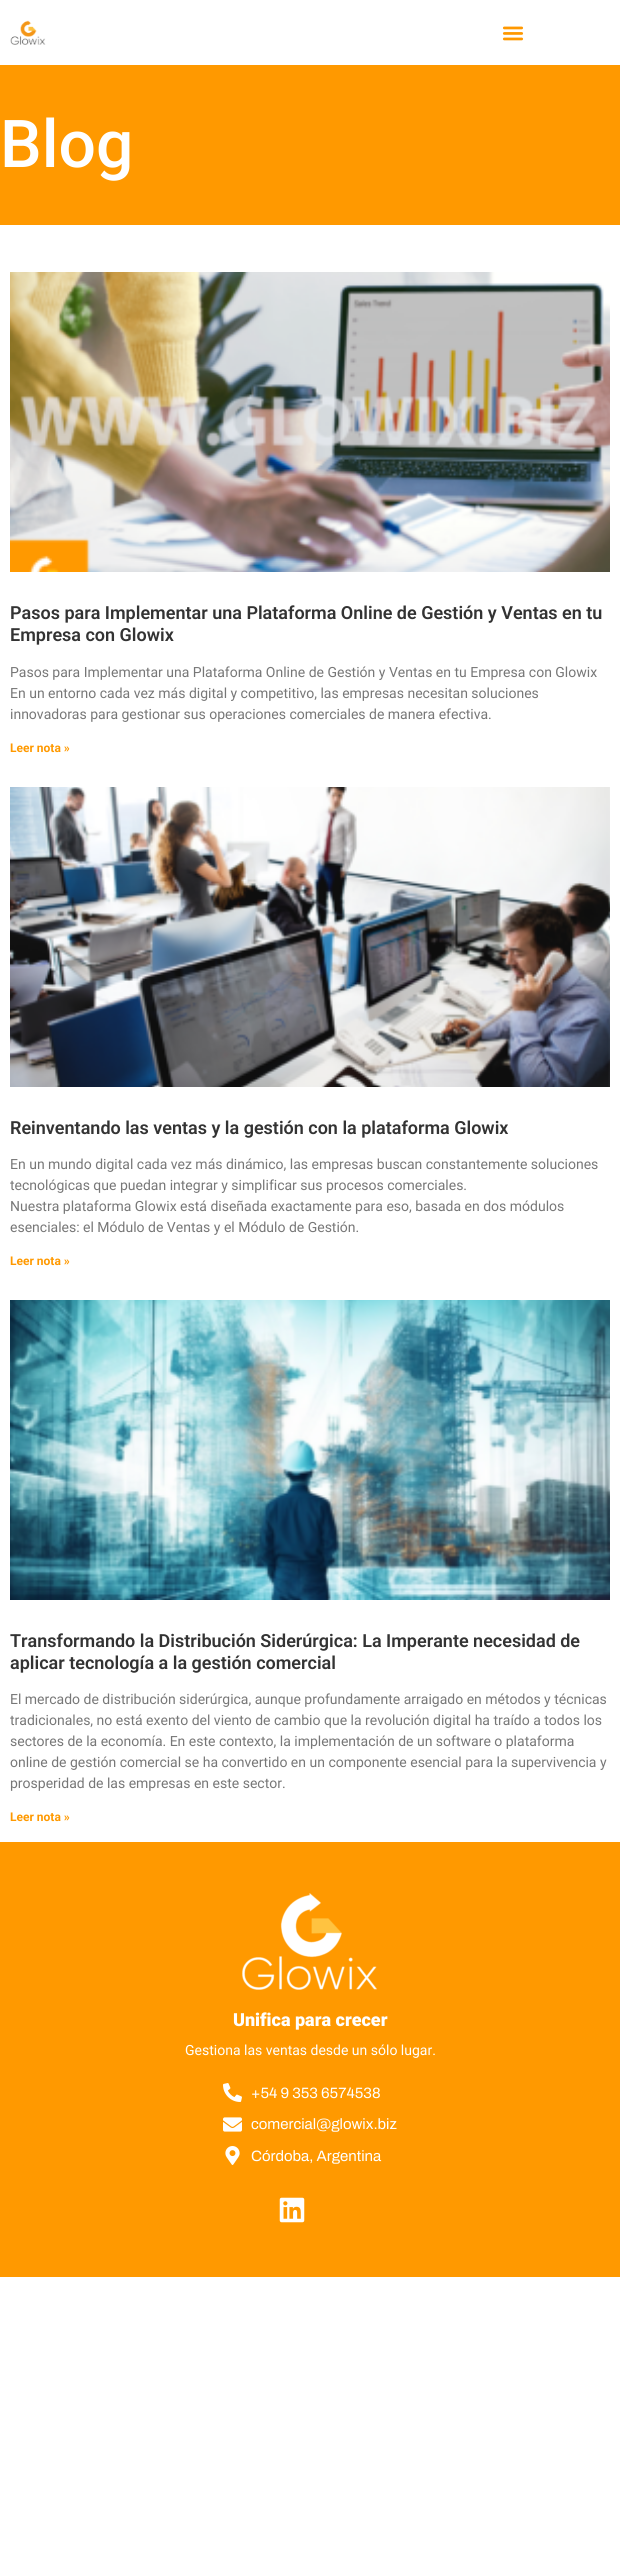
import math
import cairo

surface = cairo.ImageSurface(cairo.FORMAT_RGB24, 620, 2573)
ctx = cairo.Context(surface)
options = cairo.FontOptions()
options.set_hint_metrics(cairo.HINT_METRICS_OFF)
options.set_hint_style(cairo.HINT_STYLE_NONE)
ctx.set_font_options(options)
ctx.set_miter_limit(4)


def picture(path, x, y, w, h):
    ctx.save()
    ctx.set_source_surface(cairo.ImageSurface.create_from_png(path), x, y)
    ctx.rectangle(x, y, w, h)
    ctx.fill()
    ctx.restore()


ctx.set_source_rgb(1, 1, 1)
ctx.paint()
picture("img1.png", 10, 20, 36, 25)
picture("img2.png", 502, 26, 22, 15)
ctx.set_source_rgb(1, 0.6, 0)
ctx.rectangle(0, 65, 620, 160)
ctx.fill()
ctx.select_font_face("Roboto Medium")
ctx.set_font_size(66)
ctx.set_source_rgb(1, 1, 1)
ctx.move_to(0, 167)
ctx.show_text("Blog")
picture("img3.png", 10, 272, 600, 300)
ctx.select_font_face("Roboto SemiBold")
ctx.set_font_size(18)
ctx.set_source_rgb(0.2, 0.2, 0.2)
ctx.move_to(10, 619)
ctx.show_text("Pasos para Implementar una Plataforma Online de Gestión y Ventas en tu")
ctx.move_to(10, 641)
ctx.show_text("Empresa con Glowix")
ctx.select_font_face("Roboto")
ctx.set_font_size(14)
ctx.set_source_rgb(0.467, 0.467, 0.467)
ctx.move_to(10, 677)
ctx.show_text("Pasos para Implementar una Plataforma Online de Gestión y Ventas en tu Empresa con Glowix")
ctx.move_to(10, 698)
ctx.show_text("En un entorno cada vez más digital y competitivo, las empresas necesitan soluciones")
ctx.move_to(10, 719)
ctx.show_text("innovadoras para gestionar sus operaciones comerciales de manera efectiva.")
ctx.select_font_face("Roboto", cairo.FONT_SLANT_NORMAL, cairo.FONT_WEIGHT_BOLD)
ctx.set_font_size(12)
ctx.set_source_rgb(1, 0.6, 0)
ctx.move_to(10, 752)
ctx.show_text("Leer nota »")
picture("img4.png", 10, 787, 600, 300)
ctx.select_font_face("Roboto SemiBold")
ctx.set_font_size(18)
ctx.set_source_rgb(0.2, 0.2, 0.2)
ctx.move_to(10, 1134)
ctx.show_text("Reinventando las ventas y la gestión con la plataforma Glowix")
ctx.select_font_face("Roboto")
ctx.set_font_size(14)
ctx.set_source_rgb(0.467, 0.467, 0.467)
ctx.move_to(10, 1169)
ctx.show_text("En un mundo digital cada vez más dinámico, las empresas buscan constantemente soluciones")
ctx.move_to(10, 1190)
ctx.show_text("tecnológicas que puedan integrar y simplificar sus procesos comerciales.")
ctx.move_to(10, 1211)
ctx.show_text("Nuestra plataforma Glowix está diseñada exactamente para eso, basada en dos módulos")
ctx.move_to(10, 1232)
ctx.show_text("esenciales: el Módulo de Ventas y el Módulo de Gestión.")
ctx.select_font_face("Roboto", cairo.FONT_SLANT_NORMAL, cairo.FONT_WEIGHT_BOLD)
ctx.set_font_size(12)
ctx.set_source_rgb(1, 0.6, 0)
ctx.move_to(10, 1265)
ctx.show_text("Leer nota »")
picture("img5.png", 10, 1300, 600, 300)
ctx.select_font_face("Roboto SemiBold")
ctx.set_font_size(18)
ctx.set_source_rgb(0.2, 0.2, 0.2)
ctx.move_to(10, 1647)
ctx.show_text("Transformando la Distribución Siderúrgica: La Imperante necesidad de")
ctx.move_to(10, 1669)
ctx.show_text("aplicar tecnología a la gestión comercial")
ctx.select_font_face("Roboto")
ctx.set_font_size(14)
ctx.set_source_rgb(0.467, 0.467, 0.467)
ctx.move_to(10, 1704)
ctx.show_text("El mercado de distribución siderúrgica, aunque profundamente arraigado en métodos y técnicas")
ctx.move_to(10, 1725)
ctx.show_text("tradicionales, no está exento del viento de cambio que la revolución digital ha traído a todos los")
ctx.move_to(10, 1746)
ctx.show_text("sectores de la economía. En este contexto, la implementación de un software o plataforma")
ctx.move_to(10, 1767)
ctx.show_text("online de gestión comercial se ha convertido en un componente esencial para la supervivencia y")
ctx.move_to(10, 1788)
ctx.show_text("prosperidad de las empresas en este sector.")
ctx.select_font_face("Roboto", cairo.FONT_SLANT_NORMAL, cairo.FONT_WEIGHT_BOLD)
ctx.set_font_size(12)
ctx.set_source_rgb(1, 0.6, 0)
ctx.move_to(10, 1821)
ctx.show_text("Leer nota »")
ctx.rectangle(0, 1842, 620, 435)
ctx.fill()
picture("img6.png", 242, 1893, 135, 97)
ctx.select_font_face("Roboto Black")
ctx.set_font_size(18)
ctx.set_source_rgb(1, 1, 1)
ctx.move_to(233, 2026)
ctx.show_text("Unifica para crecer")
ctx.select_font_face("Roboto")
ctx.set_font_size(14)
ctx.move_to(185, 2055)
ctx.show_text("Gestiona las ventas desde un sólo lugar.")
picture("img7.png", 223, 2083, 19, 19)
ctx.select_font_face("Archivo")
ctx.set_font_size(15)
ctx.move_to(251, 2098)
ctx.show_text("+54 9 353 6574538")
picture("img8.png", 223, 2117, 19, 15)
ctx.move_to(251, 2129)
ctx.show_text("comercial@glowix.biz")
picture("img9.png", 225, 2146, 15, 19)
ctx.move_to(251, 2161)
ctx.show_text("Córdoba, Argentina")
picture("img10.png", 279, 2197, 26, 26)
surface.write_to_png("page.png")
